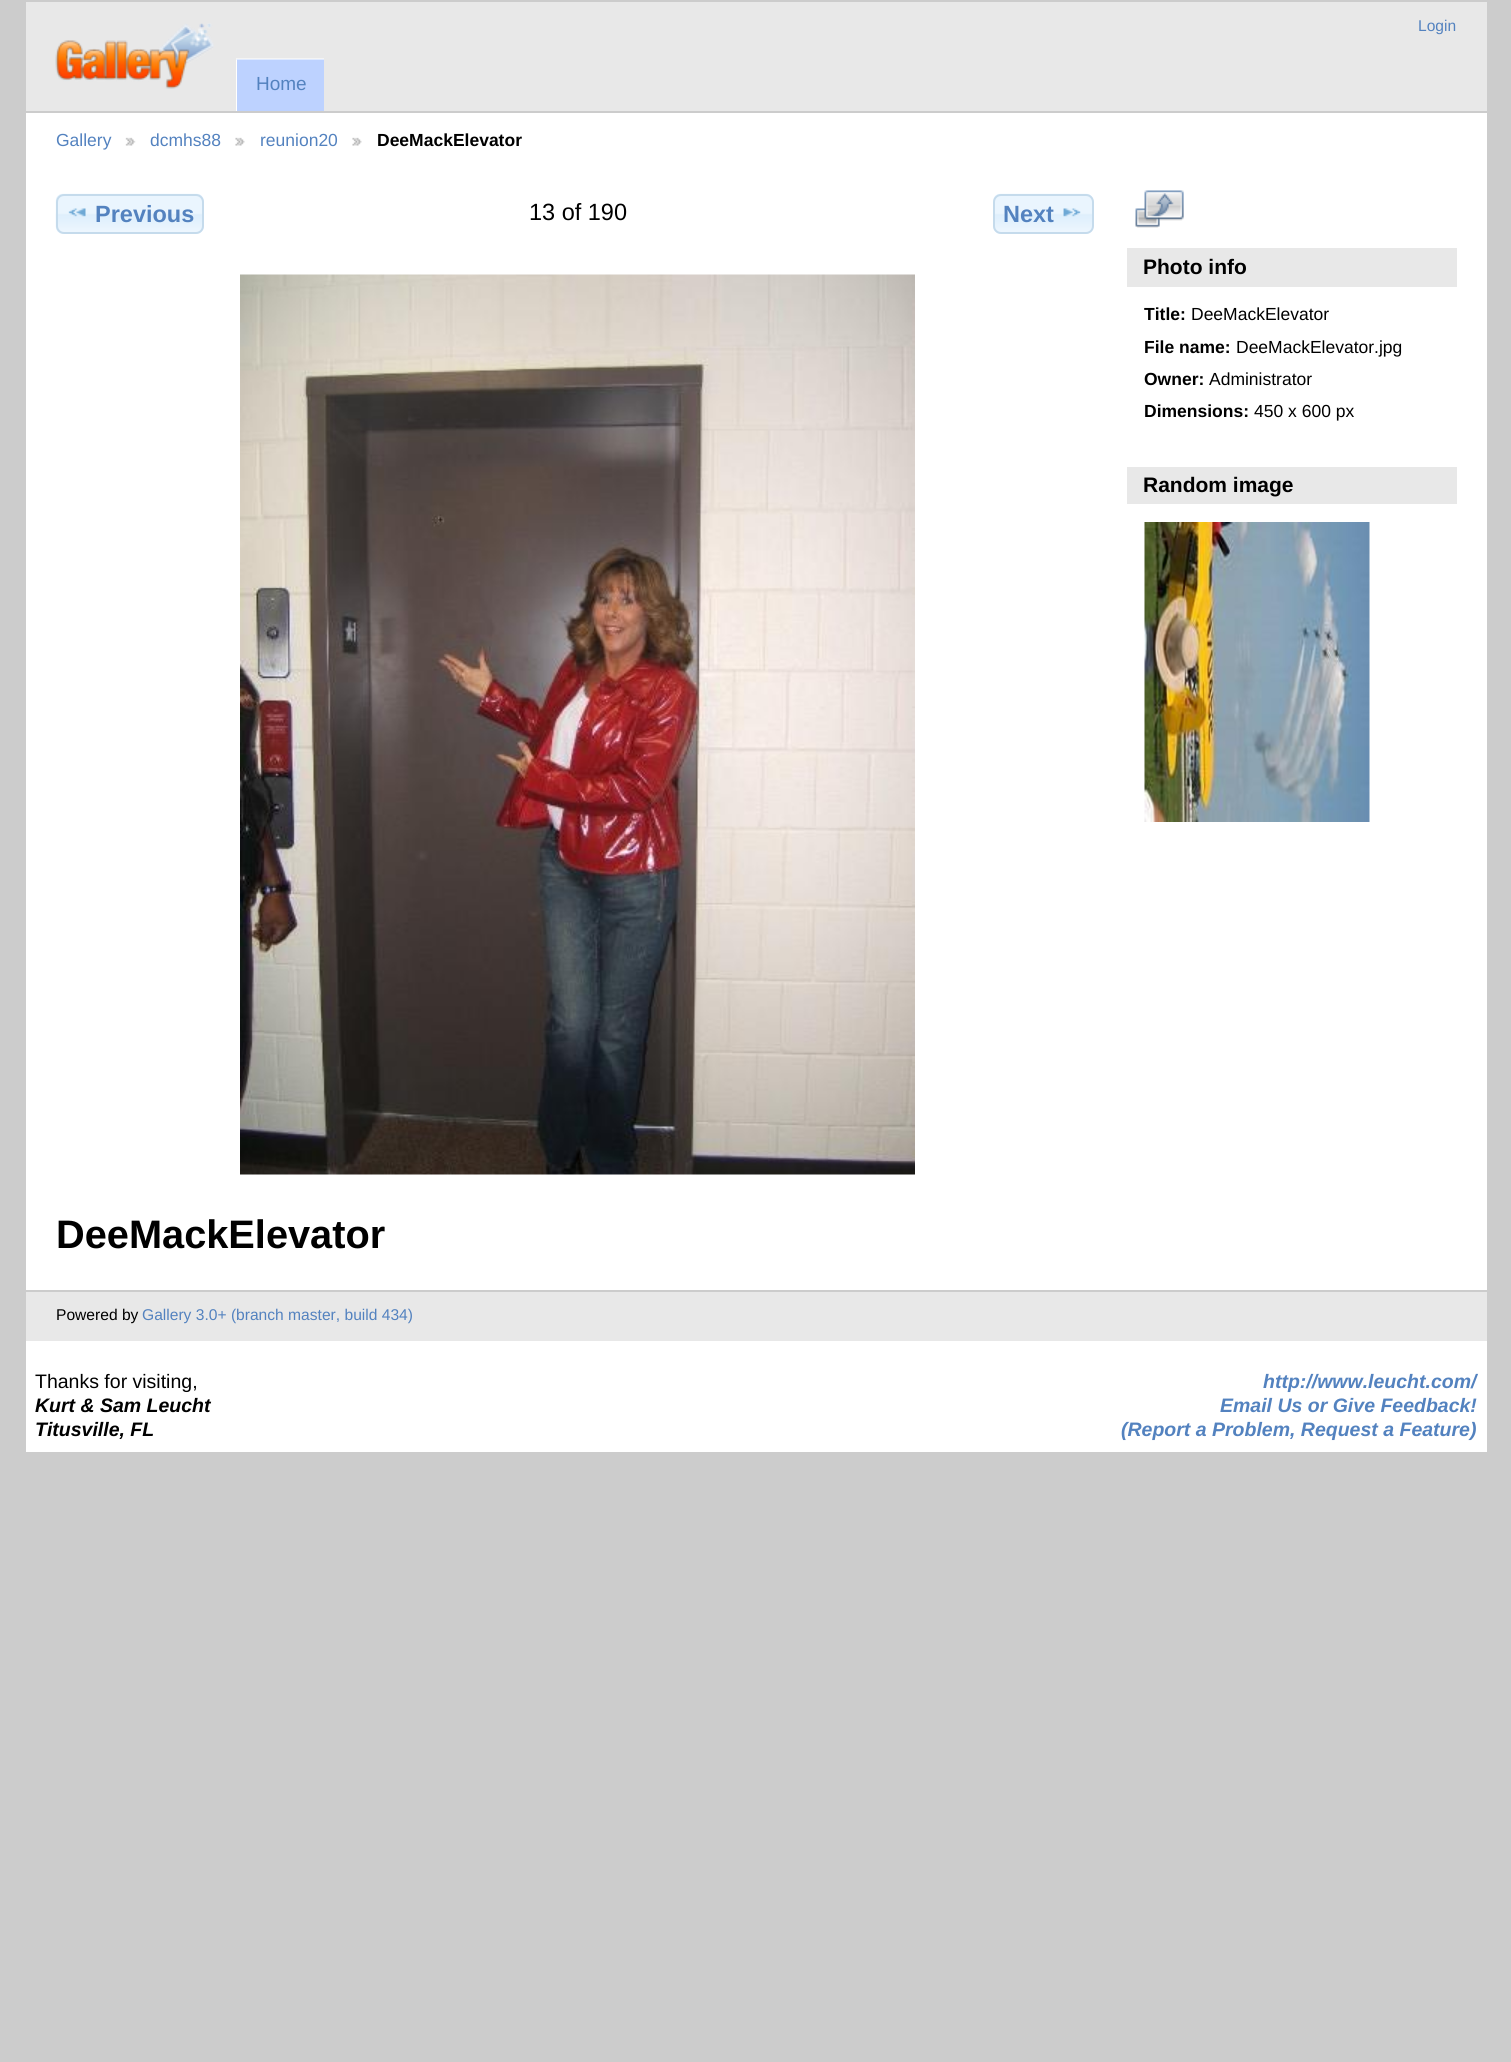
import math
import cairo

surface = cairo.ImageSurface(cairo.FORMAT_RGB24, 1511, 2062)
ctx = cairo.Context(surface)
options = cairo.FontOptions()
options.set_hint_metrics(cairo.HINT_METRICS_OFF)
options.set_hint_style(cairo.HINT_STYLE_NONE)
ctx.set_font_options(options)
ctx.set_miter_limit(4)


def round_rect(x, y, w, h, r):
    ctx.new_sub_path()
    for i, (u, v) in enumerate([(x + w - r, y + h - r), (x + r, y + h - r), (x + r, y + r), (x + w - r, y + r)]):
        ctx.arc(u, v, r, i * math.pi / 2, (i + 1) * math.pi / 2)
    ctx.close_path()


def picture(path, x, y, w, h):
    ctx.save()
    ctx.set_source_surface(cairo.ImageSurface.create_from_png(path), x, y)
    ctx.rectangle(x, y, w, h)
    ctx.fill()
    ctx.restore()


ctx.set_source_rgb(0.8, 0.8, 0.8)
ctx.paint()
ctx.set_source_rgb(1, 1, 1)
ctx.rectangle(26, 113, 1461, 1339)
ctx.fill()
ctx.set_source_rgb(0.91, 0.91, 0.91)
ctx.rectangle(26, 2, 1461, 109)
ctx.fill()
picture("img1.png", 55, 23, 159, 66)
ctx.set_source_rgb(0.741, 0.824, 1)
ctx.rectangle(236, 59, 88, 52)
ctx.fill()
ctx.set_source_rgba(1, 1, 1, 0.5)
ctx.new_path()
ctx.move_to(236, 58)
ctx.line_to(324, 58)
ctx.line_to(324, 60)
ctx.line_to(237, 60)
ctx.close_path()
ctx.fill()
ctx.set_source_rgb(1, 1, 1)
ctx.new_path()
ctx.move_to(236, 111)
ctx.line_to(236, 58)
ctx.line_to(237, 60)
ctx.line_to(237, 111)
ctx.close_path()
ctx.fill()
ctx.select_font_face("Liberation Sans")
ctx.set_font_size(19)
ctx.set_source_rgb(0.325, 0.51, 0.749)
ctx.move_to(256, 90)
ctx.show_text("Home")
ctx.set_font_size(15.6)
ctx.move_to(1418, 31)
ctx.show_text("Login")
ctx.set_font_size(17.5)
ctx.move_to(56, 146)
ctx.show_text("Gallery")
picture("img2.png", 125, 137, 11, 9)
ctx.move_to(150, 146)
ctx.show_text("dcmhs88")
picture("img3.png", 235, 137, 10, 9)
ctx.move_to(260, 146)
ctx.show_text("reunion20")
picture("img3.png", 352, 137, 10, 9)
ctx.select_font_face("Liberation Sans", cairo.FONT_SLANT_NORMAL, cairo.FONT_WEIGHT_BOLD)
ctx.set_source_rgb(0, 0, 0)
ctx.move_to(377, 146)
ctx.show_text("DeeMackElevator")
picture("img4.png", 55, 193, 149, 41)
round_rect(57, 195, 146, 38, 7)
ctx.set_source_rgb(0.773, 0.859, 0.925)
ctx.stroke()
picture("img5.png", 68, 208, 18, 9)
ctx.set_font_size(23.5)
ctx.set_source_rgb(0.325, 0.51, 0.749)
ctx.move_to(95, 222)
ctx.show_text("Previous")
ctx.select_font_face("Liberation Sans")
ctx.set_source_rgb(0, 0, 0)
ctx.move_to(529, 220)
ctx.show_text("13 of 190")
picture("img6.png", 993, 193, 100, 41)
round_rect(994, 195, 99, 38, 7)
ctx.set_source_rgb(0.773, 0.859, 0.925)
ctx.stroke()
ctx.select_font_face("Liberation Sans", cairo.FONT_SLANT_NORMAL, cairo.FONT_WEIGHT_BOLD)
ctx.set_source_rgb(0.325, 0.51, 0.749)
ctx.move_to(1003, 222)
ctx.show_text("Next")
picture("img7.png", 1063, 208, 18, 9)
picture("img8.png", 240, 274, 675, 901)
ctx.set_font_size(39.75)
ctx.set_source_rgb(0, 0, 0)
ctx.move_to(56, 1248)
ctx.show_text("DeeMackElevator")
picture("img9.png", 1135, 190, 49, 38)
ctx.set_source_rgb(0.91, 0.91, 0.91)
ctx.rectangle(1127, 248, 330, 39)
ctx.fill()
ctx.set_font_size(21)
ctx.set_source_rgb(0, 0, 0)
ctx.move_to(1143, 274)
ctx.show_text("Photo info")
ctx.set_font_size(17.5)
ctx.move_to(1144, 320)
ctx.show_text("Title:")
ctx.select_font_face("Liberation Sans")
ctx.move_to(1191, 320)
ctx.show_text("DeeMackElevator")
ctx.select_font_face("Liberation Sans", cairo.FONT_SLANT_NORMAL, cairo.FONT_WEIGHT_BOLD)
ctx.move_to(1144, 353)
ctx.show_text("File name:")
ctx.select_font_face("Liberation Sans")
ctx.move_to(1236, 353)
ctx.show_text("DeeMackElevator.jpg")
ctx.select_font_face("Liberation Sans", cairo.FONT_SLANT_NORMAL, cairo.FONT_WEIGHT_BOLD)
ctx.move_to(1144, 385)
ctx.show_text("Owner:")
ctx.select_font_face("Liberation Sans")
ctx.move_to(1209, 385)
ctx.show_text("Administrator")
ctx.select_font_face("Liberation Sans", cairo.FONT_SLANT_NORMAL, cairo.FONT_WEIGHT_BOLD)
ctx.move_to(1144, 417)
ctx.show_text("Dimensions:")
ctx.select_font_face("Liberation Sans")
ctx.move_to(1254, 417)
ctx.show_text("450 x 600 px")
ctx.set_source_rgb(0.91, 0.91, 0.91)
ctx.rectangle(1127, 467, 330, 37)
ctx.fill()
ctx.select_font_face("Liberation Sans", cairo.FONT_SLANT_NORMAL, cairo.FONT_WEIGHT_BOLD)
ctx.set_font_size(21)
ctx.set_source_rgb(0, 0, 0)
ctx.move_to(1143, 492)
ctx.show_text("Random image")
picture("img10.png", 1144, 522, 226, 300)
ctx.set_source_rgb(0.91, 0.91, 0.91)
ctx.rectangle(26, 1292, 1461, 49)
ctx.fill()
ctx.set_source_rgb(0.8, 0.8, 0.8)
ctx.rectangle(26, 1290, 1461, 2)
ctx.fill()
ctx.select_font_face("Liberation Sans")
ctx.set_font_size(15.6)
ctx.set_source_rgb(0, 0, 0)
ctx.move_to(56, 1320)
ctx.show_text("Powered by")
ctx.set_source_rgb(0.325, 0.51, 0.749)
ctx.move_to(142, 1320)
ctx.show_text("Gallery 3.0+ (branch master, build 434)")
ctx.set_font_size(19.5)
ctx.set_source_rgb(0, 0, 0)
ctx.move_to(35, 1388)
ctx.show_text("Thanks for visiting,")
ctx.select_font_face("Liberation Sans", cairo.FONT_SLANT_ITALIC, cairo.FONT_WEIGHT_BOLD)
ctx.move_to(35, 1412)
ctx.show_text("Kurt & Sam Leucht")
ctx.move_to(35, 1436)
ctx.show_text("Titusville, FL")
ctx.set_source_rgb(0.325, 0.51, 0.749)
ctx.move_to(1263, 1388)
ctx.show_text("http://www.leucht.com/")
ctx.move_to(1220, 1412)
ctx.show_text("Email Us or Give Feedback!")
ctx.move_to(1121, 1436)
ctx.show_text("(Report a Problem, Request a Feature)")
surface.write_to_png("page.png")
